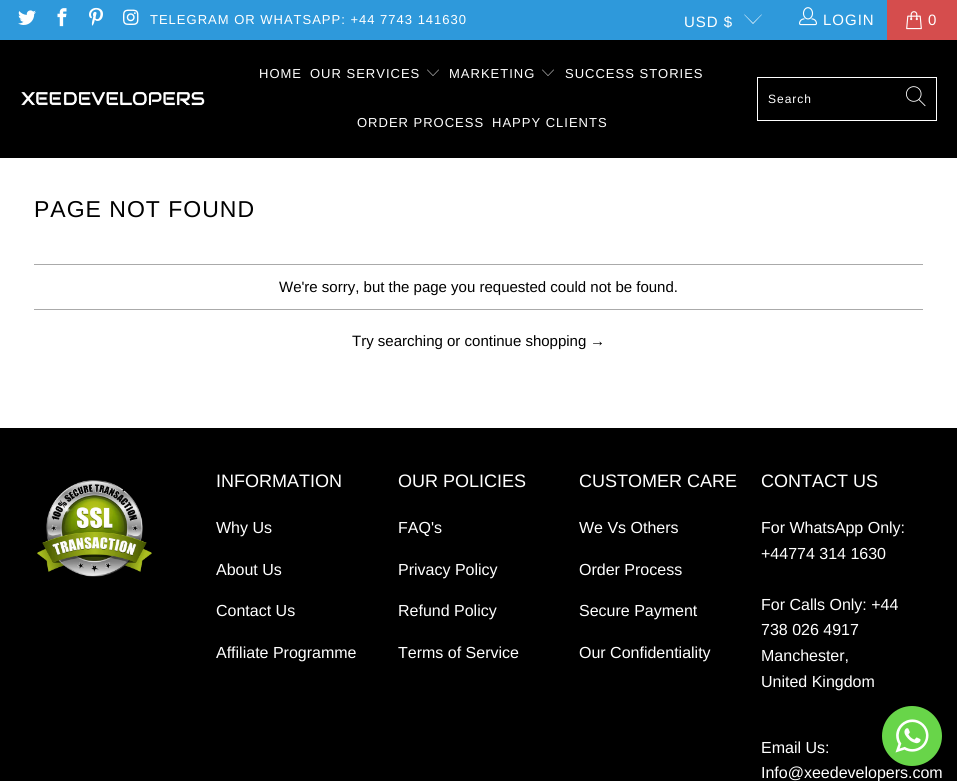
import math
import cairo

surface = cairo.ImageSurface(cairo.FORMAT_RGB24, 957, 781)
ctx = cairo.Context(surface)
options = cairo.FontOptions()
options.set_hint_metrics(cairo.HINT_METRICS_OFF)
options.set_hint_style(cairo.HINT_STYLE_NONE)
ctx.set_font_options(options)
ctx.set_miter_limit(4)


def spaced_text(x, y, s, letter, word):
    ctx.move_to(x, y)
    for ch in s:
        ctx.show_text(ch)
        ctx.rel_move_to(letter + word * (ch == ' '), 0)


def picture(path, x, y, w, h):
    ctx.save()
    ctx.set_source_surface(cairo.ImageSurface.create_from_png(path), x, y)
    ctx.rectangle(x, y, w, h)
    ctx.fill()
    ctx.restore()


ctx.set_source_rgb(1, 1, 1)
ctx.paint()
ctx.set_source_rgb(0.18, 0.6, 0.859)
ctx.rectangle(0, 0, 887, 40)
ctx.fill()
picture("img1.png", 18, 10, 18, 15)
picture("img2.png", 57, 8, 10, 19)
picture("img3.png", 89, 7, 14, 19)
picture("img4.png", 123, 9, 16, 16)
ctx.select_font_face("Arimo")
ctx.set_font_size(13)
ctx.set_source_rgb(1, 1, 1)
spaced_text(150, 24, "TELEGRAM OR WHATSAPP: +44 7743 141630", 1, 0)
ctx.set_font_size(15)
spaced_text(684, 27, "USD $", 1, 0)
ctx.new_path()
ctx.move_to(753, 24)
ctx.line_to(744, 14.5)
ctx.line_to(744.5, 14.5)
ctx.line_to(753, 23)
ctx.line_to(761.5, 14.5)
ctx.line_to(762, 14.5)
ctx.close_path()
ctx.fill()
picture("img5.png", 799, 7, 18, 19)
spaced_text(823, 25, "LOGIN", 1, 0)
ctx.set_source_rgb(0.835, 0.302, 0.302)
ctx.rectangle(887, 0, 70, 40)
ctx.fill()
picture("img6.png", 906, 11, 16, 19)
ctx.set_source_rgb(1, 1, 1)
spaced_text(928, 25, "0", 1, 0)
ctx.set_source_rgb(0, 0, 0)
ctx.rectangle(0, 40, 957, 118)
ctx.fill()
picture("img7.png", 21, 91, 184, 15)
ctx.set_font_size(13)
ctx.set_source_rgb(1, 1, 1)
spaced_text(259, 78, "HOME", 1, 0)
spaced_text(310, 78, "OUR SERVICES", 1, 0)
picture("img8.png", 427, 69, 12, 7)
spaced_text(449, 78, "MARKETING", 1, 0)
picture("img8.png", 542, 69, 12, 7)
spaced_text(565, 78, "SUCCESS STORIES", 1, 0)
spaced_text(357, 127, "ORDER PROCESS", 1, 0)
spaced_text(492, 127, "HAPPY CLIENTS", 1, 0)
ctx.rectangle(757.5, 77.5, 179, 43)
ctx.set_line_width(1)
ctx.stroke()
ctx.set_font_size(12)
spaced_text(768, 103, "Search", 1, 0)
picture("img9.png", 906, 86, 20, 21)
ctx.set_font_size(23)
ctx.set_source_rgb(0, 0, 0)
spaced_text(34, 217, "PAGE NOT FOUND", 1, 0)
ctx.set_source_rgb(0.667, 0.667, 0.667)
ctx.rectangle(34, 264, 889, 1)
ctx.fill()
ctx.rectangle(34, 309, 889, 1)
ctx.fill()
ctx.set_font_size(15)
ctx.set_source_rgb(0, 0, 0)
ctx.move_to(279, 292)
ctx.show_text("We're sorry, but the page you requested could not be found.")
ctx.move_to(352, 346)
ctx.show_text("Try searching or continue shopping")
ctx.select_font_face("Liberation Sans")
ctx.move_to(590, 346)
ctx.show_text("→")
ctx.rectangle(0, 428, 957, 353)
ctx.fill()
picture("img10.png", 37, 480, 115, 97)
ctx.select_font_face("Arimo")
ctx.set_font_size(18)
ctx.set_source_rgb(1, 1, 1)
ctx.move_to(216, 487)
ctx.show_text("INFORMATION")
ctx.set_font_size(16)
ctx.move_to(216, 533)
ctx.show_text("Why Us")
ctx.move_to(216, 575)
ctx.show_text("About Us")
ctx.move_to(216, 616)
ctx.show_text("Contact Us")
ctx.move_to(216, 658)
ctx.show_text("Affiliate Programme")
ctx.set_font_size(18)
ctx.move_to(398, 487)
ctx.show_text("OUR POLICIES")
ctx.set_font_size(16)
ctx.move_to(398, 533)
ctx.show_text("FAQ's")
ctx.move_to(398, 575)
ctx.show_text("Privacy Policy")
ctx.move_to(398, 616)
ctx.show_text("Refund Policy")
ctx.move_to(398, 658)
ctx.show_text("Terms of Service")
ctx.set_font_size(18)
ctx.move_to(579, 487)
ctx.show_text("CUSTOMER CARE")
ctx.set_font_size(16)
ctx.move_to(579, 533)
ctx.show_text("We Vs Others")
ctx.move_to(579, 575)
ctx.show_text("Order Process")
ctx.move_to(579, 616)
ctx.show_text("Secure Payment")
ctx.move_to(579, 658)
ctx.show_text("Our Confidentiality")
ctx.set_font_size(18)
ctx.move_to(761, 487)
ctx.show_text("CONTACT US")
ctx.set_font_size(16)
ctx.move_to(761, 533)
ctx.show_text("For WhatsApp Only:")
ctx.move_to(761, 559)
ctx.show_text("+44774 314 1630")
ctx.move_to(761, 610)
ctx.show_text("For Calls Only: +44")
ctx.move_to(761, 635)
ctx.show_text("738 026 4917")
ctx.move_to(761, 661)
ctx.show_text("Manchester,")
ctx.move_to(761, 687)
ctx.show_text("United Kingdom")
ctx.move_to(761, 753)
ctx.show_text("Email Us:")
ctx.move_to(761, 778)
ctx.show_text("Info@xeedevelopers.com")
picture("img11.png", 882, 706, 60, 60)
surface.write_to_png("page.png")
